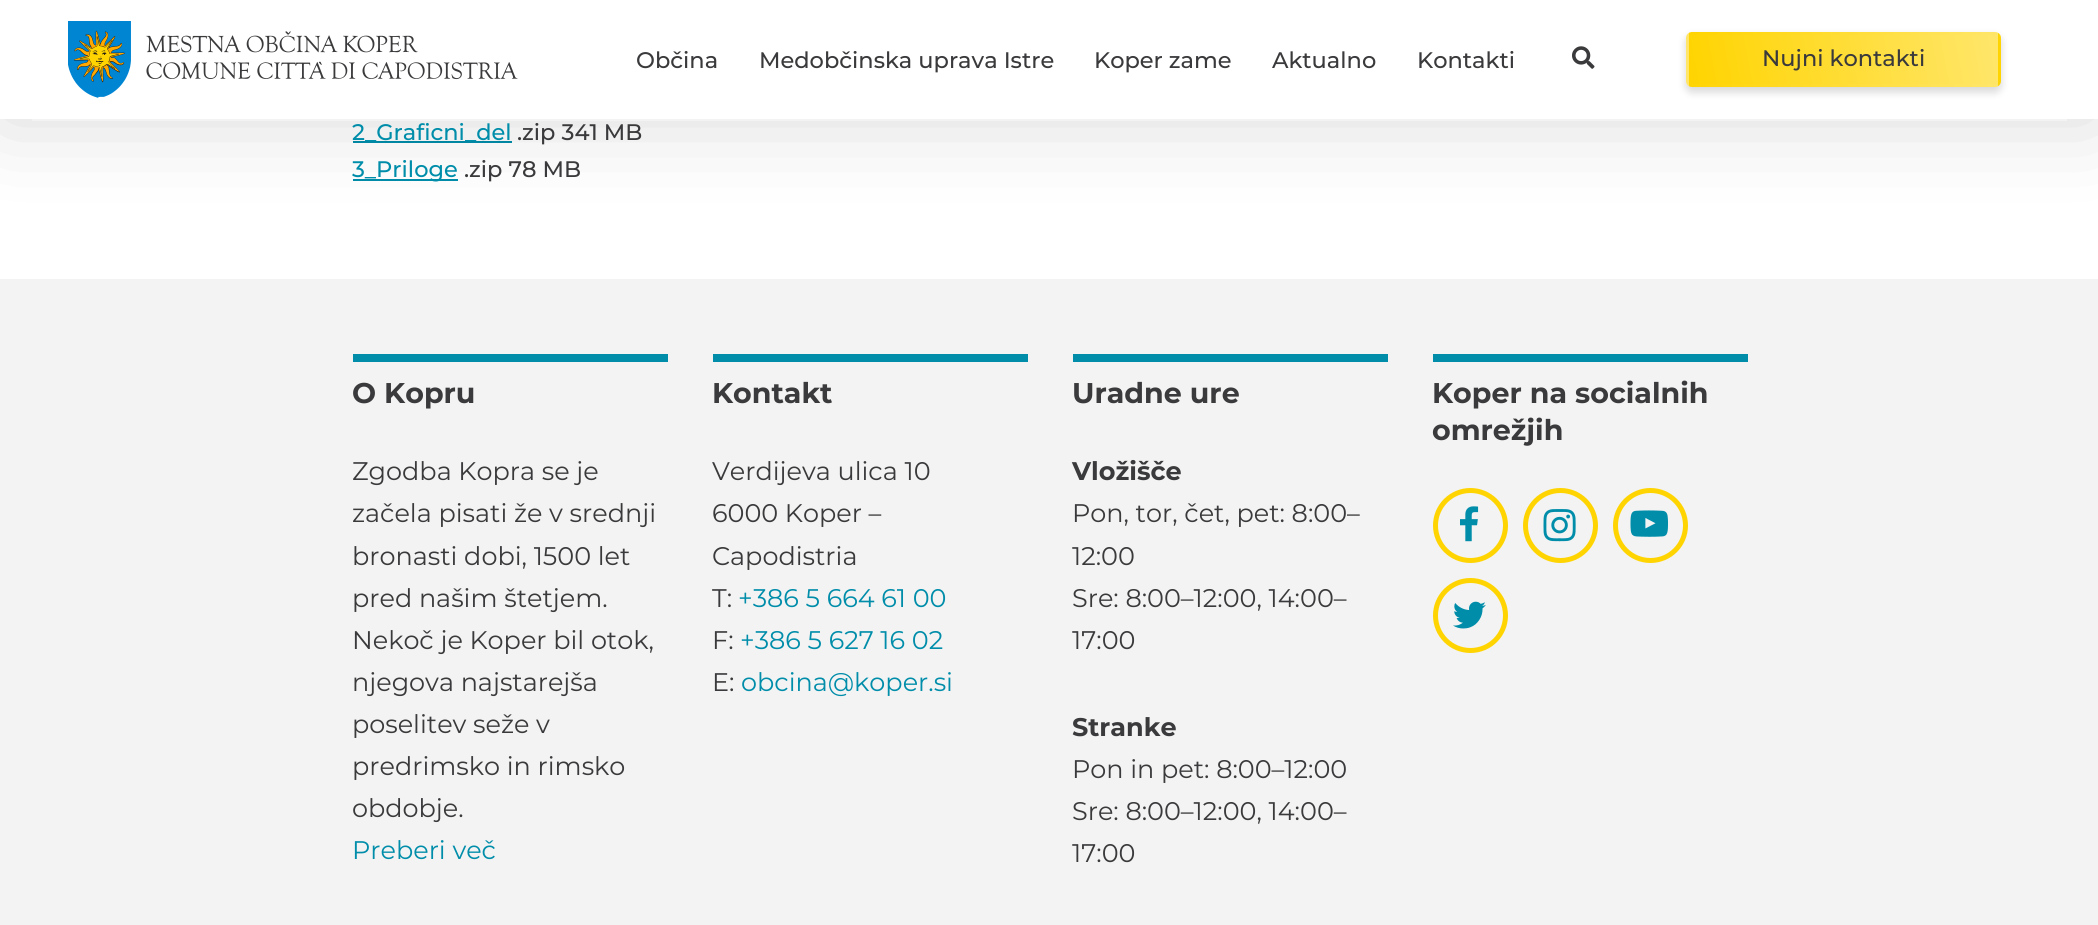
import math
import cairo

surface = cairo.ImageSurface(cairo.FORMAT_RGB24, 2098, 925)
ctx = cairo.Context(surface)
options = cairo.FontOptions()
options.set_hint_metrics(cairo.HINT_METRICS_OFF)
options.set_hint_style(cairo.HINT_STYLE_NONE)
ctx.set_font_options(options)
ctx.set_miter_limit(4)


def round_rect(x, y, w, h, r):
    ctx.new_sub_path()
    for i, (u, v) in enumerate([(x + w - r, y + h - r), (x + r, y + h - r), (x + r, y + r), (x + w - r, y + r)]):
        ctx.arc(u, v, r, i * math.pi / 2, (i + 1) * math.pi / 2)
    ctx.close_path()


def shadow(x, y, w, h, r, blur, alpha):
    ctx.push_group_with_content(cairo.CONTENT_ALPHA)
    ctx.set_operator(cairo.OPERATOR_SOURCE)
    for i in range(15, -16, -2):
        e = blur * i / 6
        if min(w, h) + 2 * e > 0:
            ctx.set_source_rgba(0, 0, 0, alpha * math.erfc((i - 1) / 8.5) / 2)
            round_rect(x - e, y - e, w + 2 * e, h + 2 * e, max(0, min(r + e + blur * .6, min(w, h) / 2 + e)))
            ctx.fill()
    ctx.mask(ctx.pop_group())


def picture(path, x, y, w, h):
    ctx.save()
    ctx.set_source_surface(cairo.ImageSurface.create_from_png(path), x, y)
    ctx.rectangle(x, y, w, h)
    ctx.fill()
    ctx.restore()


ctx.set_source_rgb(1, 1, 1)
ctx.paint()
ctx.set_source_rgb(0, 0.553, 0.667)
ctx.rectangle(353, 141, 159, 2)
ctx.fill()
ctx.rectangle(353, 179, 105, 2)
ctx.fill()
ctx.set_source_rgb(0, 0, 0)
shadow(0, 0, 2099, 120, 0, 45, 0.15)
ctx.set_source_rgb(1, 1, 1)
ctx.rectangle(0, 0, 2098, 119)
ctx.fill()
ctx.set_source_rgb(0.953, 0.953, 0.953)
ctx.rectangle(32, 119, 2035, 2)
ctx.fill()
picture("img1.png", 68, 21, 450, 77)
ctx.select_font_face("Montserrat Medium")
ctx.set_font_size(22.5)
ctx.set_source_rgb(0.227, 0.227, 0.235)
ctx.move_to(636, 68)
ctx.show_text("Občina")
ctx.move_to(759, 68)
ctx.show_text("Medobčinska uprava Istre")
ctx.move_to(1094, 68)
ctx.show_text("Koper zame")
ctx.move_to(1272, 68)
ctx.show_text("Aktualno")
ctx.move_to(1417, 68)
ctx.show_text("Kontakti")
picture("img2.png", 1572, 46, 23, 23)
ctx.set_source_rgb(0, 0, 0)
shadow(1686, 36, 315, 56, 6, 4.5, 0.16)
ctx.save()
round_rect(1686, 32, 315, 55, 6)
ctx.clip()
gradient = cairo.LinearGradient(1688, -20, 1381, 40)
gradient.add_color_stop_rgba(0, 1, 0.902, 0.42, 1)
gradient.add_color_stop_rgba(1, 1, 0.831, 0, 1)
ctx.set_source(gradient)
ctx.rectangle(1686, 32, 3, 3)
ctx.fill()
gradient = cairo.LinearGradient(1997, -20, 1690, 40)
gradient.add_color_stop_rgba(0, 1, 0.902, 0.42, 1)
gradient.add_color_stop_rgba(1, 1, 0.831, 0, 1)
ctx.set_source(gradient)
ctx.rectangle(1689, 32, 309, 3)
ctx.fill()
gradient = cairo.LinearGradient(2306, -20, 1999, 40)
gradient.add_color_stop_rgba(0, 1, 0.902, 0.42, 1)
gradient.add_color_stop_rgba(1, 1, 0.831, 0, 1)
ctx.set_source(gradient)
ctx.rectangle(1998, 32, 3, 3)
ctx.fill()
gradient = cairo.LinearGradient(1688, 29, 1381, 89)
gradient.add_color_stop_rgba(0, 1, 0.902, 0.42, 1)
gradient.add_color_stop_rgba(1, 1, 0.831, 0, 1)
ctx.set_source(gradient)
ctx.rectangle(1686, 35, 3, 49)
ctx.fill()
ctx.restore()
gradient = cairo.LinearGradient(1997, 29, 1690, 89)
gradient.add_color_stop_rgba(0, 1, 0.902, 0.42, 1)
gradient.add_color_stop_rgba(1, 1, 0.831, 0, 1)
ctx.set_source(gradient)
ctx.rectangle(1689, 35, 309, 49)
ctx.fill()
ctx.save()
round_rect(1686, 32, 315, 55, 6)
ctx.clip()
gradient = cairo.LinearGradient(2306, 29, 1999, 89)
gradient.add_color_stop_rgba(0, 1, 0.902, 0.42, 1)
gradient.add_color_stop_rgba(1, 1, 0.831, 0, 1)
ctx.set_source(gradient)
ctx.rectangle(1998, 35, 3, 49)
ctx.fill()
gradient = cairo.LinearGradient(1688, 79, 1381, 139)
gradient.add_color_stop_rgba(0, 1, 0.902, 0.42, 1)
gradient.add_color_stop_rgba(1, 1, 0.831, 0, 1)
ctx.set_source(gradient)
ctx.rectangle(1686, 84, 3, 3)
ctx.fill()
gradient = cairo.LinearGradient(1997, 79, 1690, 139)
gradient.add_color_stop_rgba(0, 1, 0.902, 0.42, 1)
gradient.add_color_stop_rgba(1, 1, 0.831, 0, 1)
ctx.set_source(gradient)
ctx.rectangle(1689, 84, 309, 3)
ctx.fill()
gradient = cairo.LinearGradient(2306, 79, 1999, 139)
gradient.add_color_stop_rgba(0, 1, 0.902, 0.42, 1)
gradient.add_color_stop_rgba(1, 1, 0.831, 0, 1)
ctx.set_source(gradient)
ctx.rectangle(1998, 84, 3, 3)
ctx.fill()
ctx.restore()
ctx.set_source_rgb(0.227, 0.227, 0.235)
ctx.move_to(1762, 66)
ctx.show_text("Nujni kontakti")
ctx.set_source_rgb(0, 0.553, 0.667)
ctx.move_to(352, 140)
ctx.show_text("2_Graficni_del")
ctx.set_source_rgb(0.227, 0.227, 0.235)
ctx.move_to(517, 140)
ctx.show_text(".zip 341 MB")
ctx.set_source_rgb(0, 0.553, 0.667)
ctx.move_to(352, 177)
ctx.show_text("3_Priloge")
ctx.set_source_rgb(0.227, 0.227, 0.235)
ctx.move_to(464, 177)
ctx.show_text(".zip 78 MB")
ctx.set_source_rgb(0.953, 0.953, 0.953)
ctx.rectangle(0, 279, 2098, 646)
ctx.fill()
ctx.set_source_rgb(0, 0.553, 0.667)
ctx.rectangle(353, 354, 315, 8)
ctx.fill()
ctx.select_font_face("Montserrat", cairo.FONT_SLANT_NORMAL, cairo.FONT_WEIGHT_BOLD)
ctx.set_font_size(28.5)
ctx.set_source_rgb(0.227, 0.227, 0.235)
ctx.move_to(352, 403)
ctx.show_text("O Kopru")
ctx.select_font_face("Montserrat")
ctx.set_font_size(25.5)
ctx.move_to(352, 480)
ctx.show_text("Zgodba Kopra se je")
ctx.move_to(352, 522)
ctx.show_text("začela pisati že v srednji")
ctx.move_to(352, 565)
ctx.show_text("bronasti dobi, 1500 let")
ctx.move_to(352, 607)
ctx.show_text("pred našim štetjem.")
ctx.move_to(352, 649)
ctx.show_text("Nekoč je Koper bil otok,")
ctx.move_to(352, 691)
ctx.show_text("njegova najstarejša")
ctx.move_to(352, 733)
ctx.show_text("poselitev seže v")
ctx.move_to(352, 775)
ctx.show_text("predrimsko in rimsko")
ctx.move_to(352, 817)
ctx.show_text("obdobje.")
ctx.set_source_rgb(0, 0.553, 0.667)
ctx.move_to(352, 859)
ctx.show_text("Preberi več")
ctx.rectangle(713, 354, 315, 8)
ctx.fill()
ctx.select_font_face("Montserrat", cairo.FONT_SLANT_NORMAL, cairo.FONT_WEIGHT_BOLD)
ctx.set_font_size(28.5)
ctx.set_source_rgb(0.227, 0.227, 0.235)
ctx.move_to(712, 403)
ctx.show_text("Kontakt")
ctx.select_font_face("Montserrat")
ctx.set_font_size(25.5)
ctx.move_to(712, 480)
ctx.show_text("Verdijeva ulica 10")
ctx.move_to(712, 522)
ctx.show_text("6000 Koper –")
ctx.move_to(712, 565)
ctx.show_text("Capodistria")
ctx.move_to(712, 607)
ctx.show_text("T:")
ctx.set_source_rgb(0, 0.553, 0.667)
ctx.move_to(738, 607)
ctx.show_text("+386 5 664 61 00")
ctx.set_source_rgb(0.227, 0.227, 0.235)
ctx.move_to(712, 649)
ctx.show_text("F:")
ctx.set_source_rgb(0, 0.553, 0.667)
ctx.move_to(740, 649)
ctx.show_text("+386 5 627 16 02")
ctx.set_source_rgb(0.227, 0.227, 0.235)
ctx.move_to(712, 691)
ctx.show_text("E:")
ctx.set_source_rgb(0, 0.553, 0.667)
ctx.move_to(741, 691)
ctx.show_text("obcina@koper.si")
ctx.rectangle(1073, 354, 315, 8)
ctx.fill()
ctx.select_font_face("Montserrat", cairo.FONT_SLANT_NORMAL, cairo.FONT_WEIGHT_BOLD)
ctx.set_font_size(28.5)
ctx.set_source_rgb(0.227, 0.227, 0.235)
ctx.move_to(1072, 403)
ctx.show_text("Uradne ure")
ctx.set_font_size(25.5)
ctx.move_to(1072, 480)
ctx.show_text("Vložišče")
ctx.select_font_face("Montserrat")
ctx.move_to(1072, 522)
ctx.show_text("Pon, tor, čet, pet: 8:00–")
ctx.move_to(1072, 565)
ctx.show_text("12:00")
ctx.move_to(1072, 607)
ctx.show_text("Sre: 8:00–12:00, 14:00–")
ctx.move_to(1072, 649)
ctx.show_text("17:00")
ctx.select_font_face("Montserrat", cairo.FONT_SLANT_NORMAL, cairo.FONT_WEIGHT_BOLD)
ctx.move_to(1072, 736)
ctx.show_text("Stranke")
ctx.select_font_face("Montserrat")
ctx.move_to(1072, 778)
ctx.show_text("Pon in pet: 8:00–12:00")
ctx.move_to(1072, 820)
ctx.show_text("Sre: 8:00–12:00, 14:00–")
ctx.move_to(1072, 862)
ctx.show_text("17:00")
ctx.set_source_rgb(0, 0.553, 0.667)
ctx.rectangle(1433, 354, 315, 8)
ctx.fill()
ctx.select_font_face("Montserrat", cairo.FONT_SLANT_NORMAL, cairo.FONT_WEIGHT_BOLD)
ctx.set_font_size(28.5)
ctx.set_source_rgb(0.227, 0.227, 0.235)
ctx.move_to(1432, 403)
ctx.show_text("Koper na socialnih")
ctx.move_to(1432, 440)
ctx.show_text("omrežjih")
ctx.new_path()
ctx.arc(1470.5, 525.5, 35, 0, 2 * math.pi)
ctx.set_source_rgb(1, 0.831, 0)
ctx.set_line_width(5)
ctx.stroke()
picture("img3.png", 1460, 506, 19, 36)
ctx.arc(1560.5, 525.5, 35, 0, 2 * math.pi)
ctx.stroke()
picture("img4.png", 1543, 509, 33, 33)
ctx.arc(1650.5, 525.5, 35, 0, 2 * math.pi)
ctx.stroke()
picture("img5.png", 1630, 510, 38, 27)
ctx.arc(1470.5, 615.5, 35, 0, 2 * math.pi)
ctx.stroke()
picture("img6.png", 1453, 601, 33, 28)
surface.write_to_png("page.png")
